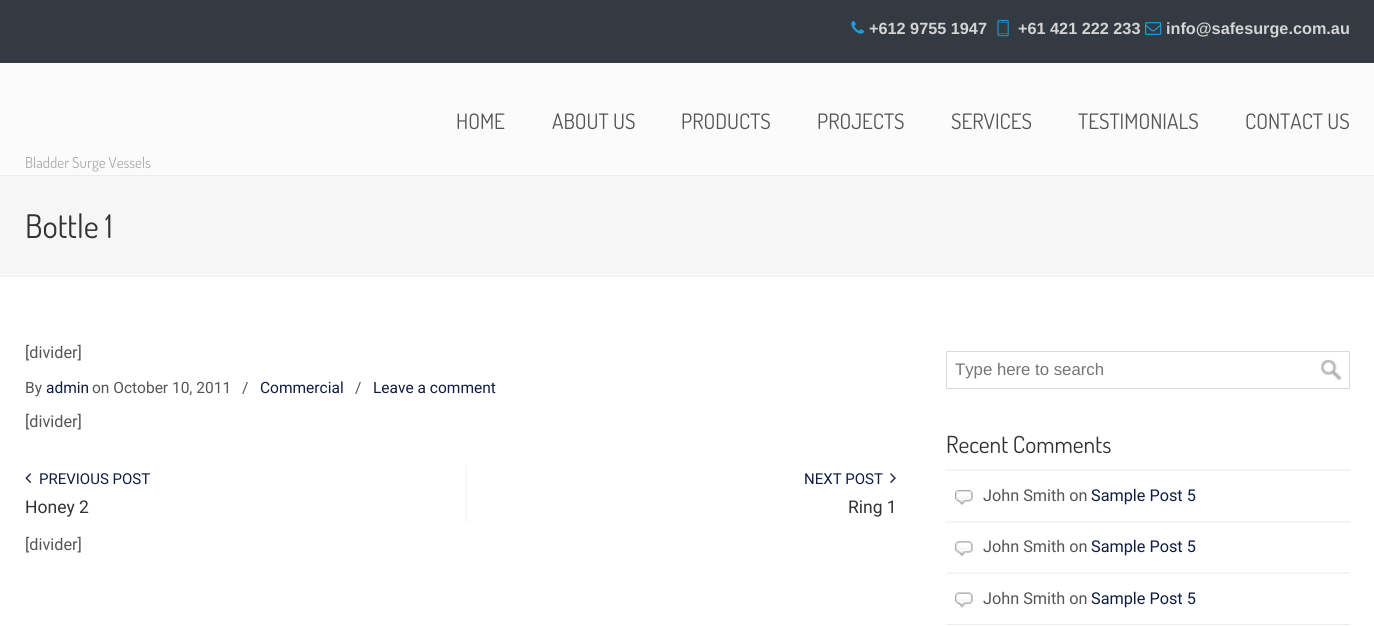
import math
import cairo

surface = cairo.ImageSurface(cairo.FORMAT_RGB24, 1374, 626)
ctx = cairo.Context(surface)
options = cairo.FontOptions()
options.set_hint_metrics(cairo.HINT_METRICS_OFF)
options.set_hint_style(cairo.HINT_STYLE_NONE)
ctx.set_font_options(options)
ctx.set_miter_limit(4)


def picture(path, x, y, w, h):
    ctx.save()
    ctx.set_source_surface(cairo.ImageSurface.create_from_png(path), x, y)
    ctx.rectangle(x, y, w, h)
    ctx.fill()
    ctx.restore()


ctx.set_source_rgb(0.984, 0.984, 0.984)
ctx.paint()
ctx.set_source_rgb(0.204, 0.227, 0.255)
ctx.rectangle(0, 0, 1374, 63)
ctx.fill()
picture("img1.png", 851, 21, 13, 13)
ctx.select_font_face("Liberation Sans", cairo.FONT_SLANT_NORMAL, cairo.FONT_WEIGHT_BOLD)
ctx.set_font_size(16.25)
ctx.set_source_rgb(0.831, 0.831, 0.831)
ctx.move_to(869, 34)
ctx.show_text("+612 9755 1947")
picture("img2.png", 997, 19, 12, 18)
ctx.move_to(1018, 34)
ctx.show_text("+61 421 222 233")
picture("img3.png", 1145, 22, 17, 13)
ctx.move_to(1166, 34)
ctx.show_text("info@safesurge.com.au")
ctx.select_font_face("Dosis")
ctx.set_font_size(21.25)
ctx.set_source_rgb(0.333, 0.333, 0.333)
ctx.move_to(456, 129)
ctx.show_text("HOME")
ctx.move_to(552, 129)
ctx.show_text("ABOUT US")
ctx.move_to(681, 129)
ctx.show_text("PRODUCTS")
ctx.move_to(817, 129)
ctx.show_text("PROJECTS")
ctx.move_to(951, 129)
ctx.show_text("SERVICES")
ctx.move_to(1078, 129)
ctx.show_text("TESTIMONIALS")
ctx.move_to(1245, 129)
ctx.show_text("CONTACT US")
picture("img4.png", 0, 175, 1374, 1)
ctx.set_font_size(15)
ctx.set_source_rgb(0.667, 0.667, 0.667)
ctx.move_to(25, 168)
ctx.show_text("Bladder Surge Vessels")
ctx.set_source_rgb(0.961, 0.961, 0.961)
ctx.rectangle(0, 176, 1374, 98)
ctx.fill()
ctx.set_font_size(32.5)
ctx.set_source_rgb(0.2, 0.2, 0.2)
ctx.move_to(25, 238)
ctx.show_text("Bottle 1")
ctx.set_source_rgb(1, 1, 1)
ctx.rectangle(0, 274, 1374, 352)
ctx.fill()
picture("img5.png", 0, 275, 1374, 2)
ctx.select_font_face("Roboto")
ctx.set_font_size(16.25)
ctx.set_source_rgb(0.333, 0.333, 0.333)
ctx.move_to(25, 358)
ctx.show_text("[divider]")
ctx.set_font_size(15.5)
ctx.move_to(25, 393)
ctx.show_text("By")
ctx.set_source_rgb(0.059, 0.114, 0.255)
ctx.move_to(46, 393)
ctx.show_text("admin")
ctx.set_source_rgb(0.333, 0.333, 0.333)
ctx.move_to(92, 393)
ctx.show_text("on October 10, 2011")
ctx.move_to(242, 393)
ctx.show_text("/")
ctx.set_source_rgb(0.059, 0.114, 0.255)
ctx.move_to(260, 393)
ctx.show_text("Commercial")
ctx.set_source_rgb(0.333, 0.333, 0.333)
ctx.move_to(355, 393)
ctx.show_text("/")
ctx.set_source_rgb(0.059, 0.114, 0.255)
ctx.move_to(373, 393)
ctx.show_text("Leave a comment")
ctx.set_font_size(16.25)
ctx.set_source_rgb(0.333, 0.333, 0.333)
ctx.move_to(25, 427)
ctx.show_text("[divider]")
picture("img6.png", 25, 473, 7, 10)
ctx.set_font_size(15)
ctx.set_source_rgb(0.059, 0.114, 0.255)
ctx.move_to(39, 484)
ctx.show_text("PREVIOUS POST")
ctx.set_font_size(17.5)
ctx.set_source_rgb(0.2, 0.2, 0.2)
ctx.move_to(25, 513)
ctx.show_text("Honey 2")
picture("img7.png", 466, 465, 1, 58)
ctx.set_font_size(15)
ctx.set_source_rgb(0.059, 0.114, 0.255)
ctx.move_to(804, 484)
ctx.show_text("NEXT POST")
picture("img8.png", 890, 473, 6, 10)
ctx.set_font_size(17.5)
ctx.set_source_rgb(0.2, 0.2, 0.2)
ctx.move_to(848, 513)
ctx.show_text("Ring 1")
ctx.set_font_size(16.25)
ctx.set_source_rgb(0.333, 0.333, 0.333)
ctx.move_to(25, 550)
ctx.show_text("[divider]")
ctx.rectangle(946.5, 351.5, 403, 37)
ctx.set_source_rgb(0.867, 0.851, 0.851)
ctx.set_line_width(1)
ctx.stroke()
ctx.select_font_face("Liberation Sans")
ctx.set_font_size(16.75)
ctx.set_source_rgb(0.459, 0.459, 0.459)
ctx.move_to(955, 375)
ctx.show_text("Type here to search")
picture("img9.png", 1321, 359, 21, 21)
picture("img10.png", 946, 469, 404, 2)
ctx.select_font_face("Dosis")
ctx.set_font_size(23.5)
ctx.set_source_rgb(0.2, 0.2, 0.2)
ctx.move_to(946, 453)
ctx.show_text("Recent Comments")
picture("img11.png", 946, 521, 404, 2)
picture("img12.png", 954, 489, 19, 17)
ctx.select_font_face("Roboto")
ctx.set_font_size(16.25)
ctx.set_source_rgb(0.333, 0.333, 0.333)
ctx.move_to(983, 501)
ctx.show_text("John Smith on")
ctx.set_source_rgb(0.059, 0.114, 0.255)
ctx.move_to(1091, 501)
ctx.show_text("Sample Post 5")
picture("img13.png", 946, 572, 404, 2)
picture("img14.png", 954, 541, 19, 16)
ctx.set_source_rgb(0.333, 0.333, 0.333)
ctx.move_to(983, 552)
ctx.show_text("John Smith on")
ctx.set_source_rgb(0.059, 0.114, 0.255)
ctx.move_to(1091, 552)
ctx.show_text("Sample Post 5")
picture("img15.png", 946, 624, 404, 1)
picture("img16.png", 954, 592, 19, 16)
ctx.set_source_rgb(0.333, 0.333, 0.333)
ctx.move_to(983, 604)
ctx.show_text("John Smith on")
ctx.set_source_rgb(0.059, 0.114, 0.255)
ctx.move_to(1091, 604)
ctx.show_text("Sample Post 5")
surface.write_to_png("page.png")
